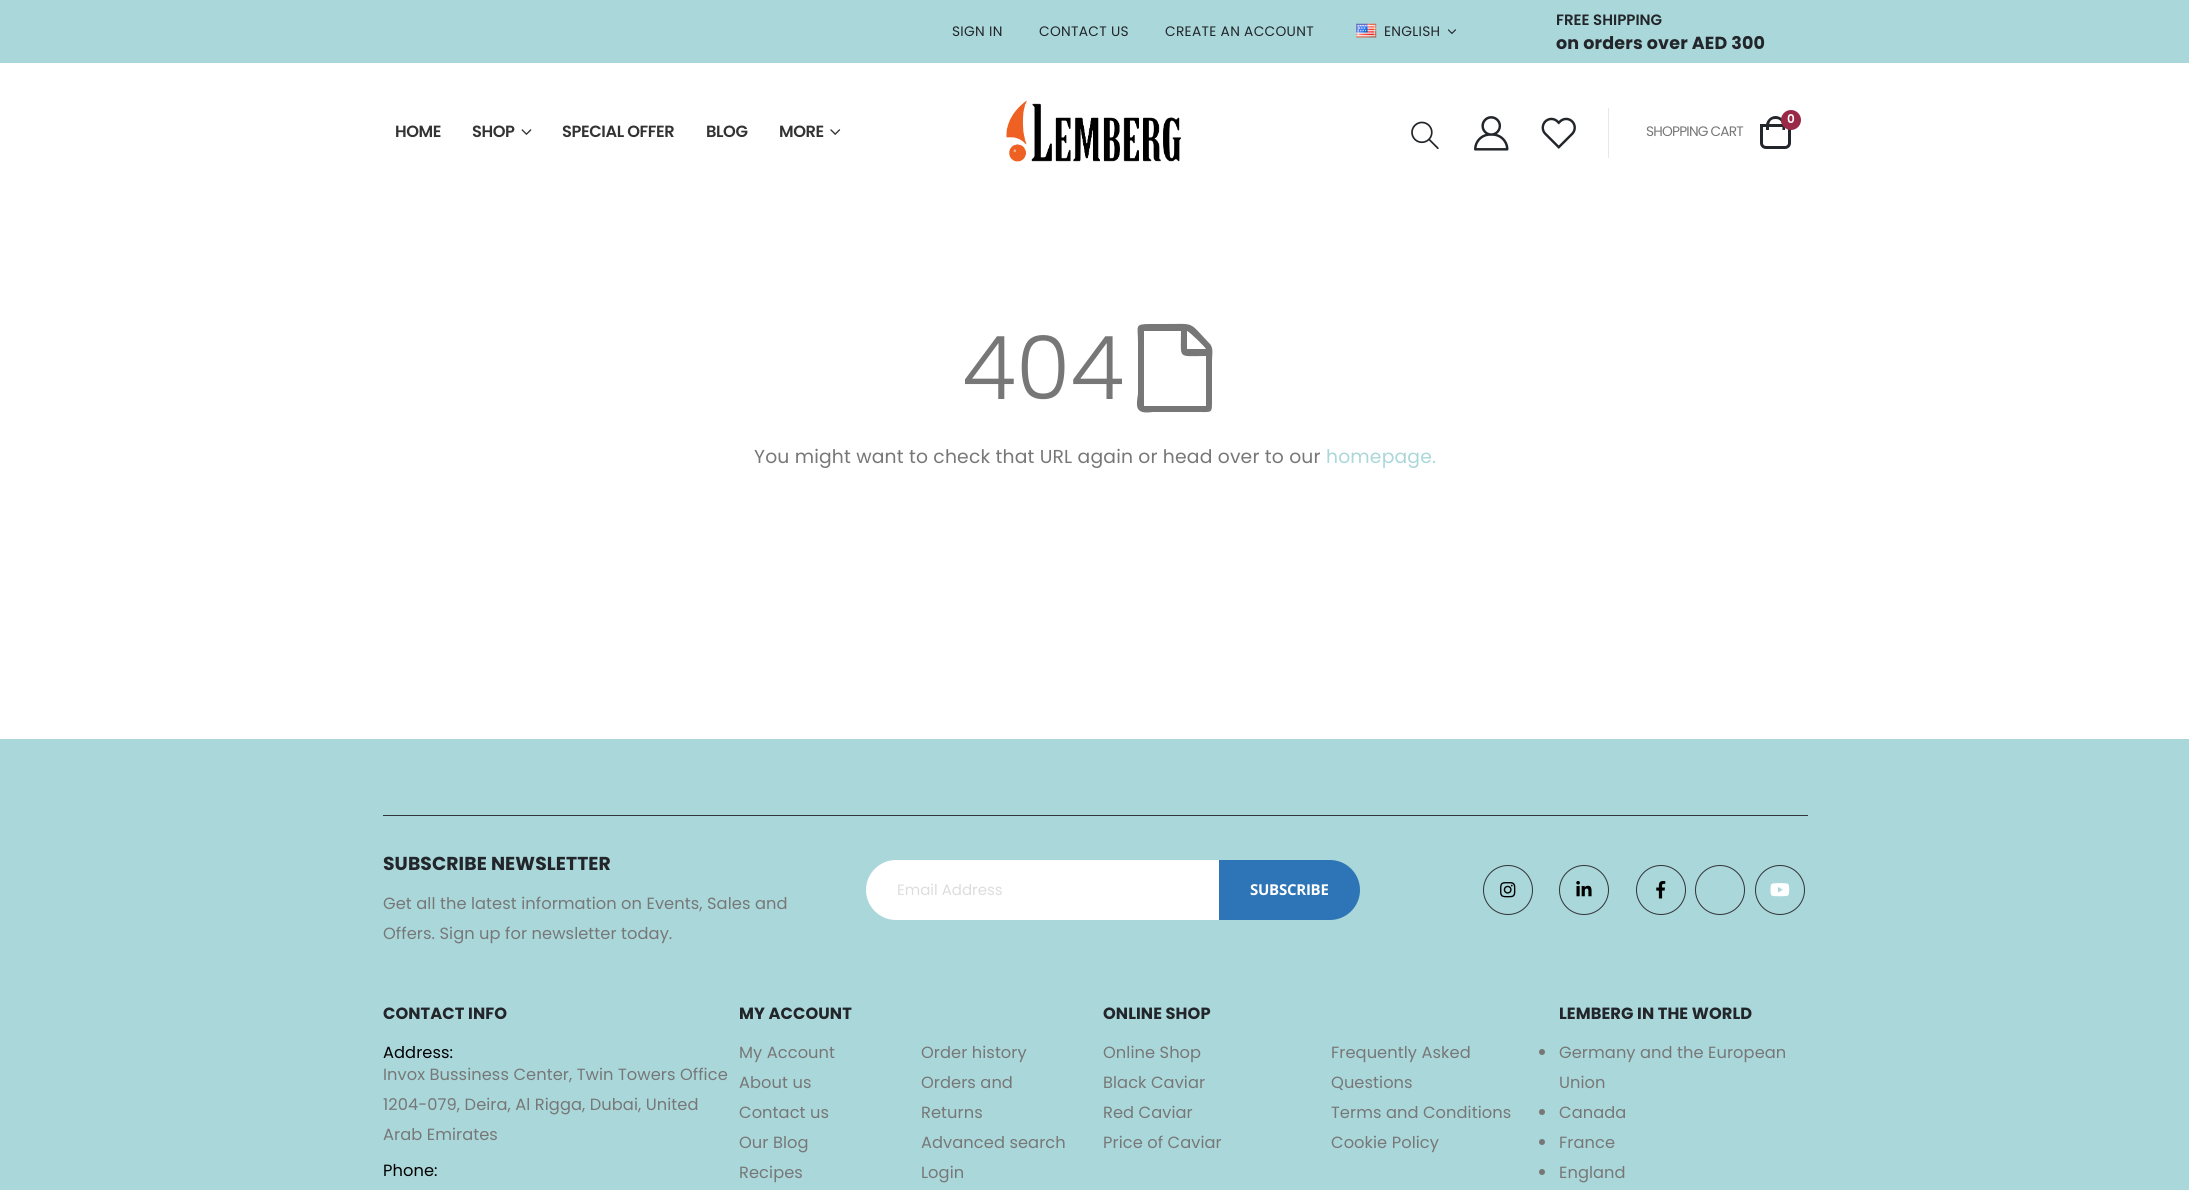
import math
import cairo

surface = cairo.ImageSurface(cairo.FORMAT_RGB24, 2189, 1190)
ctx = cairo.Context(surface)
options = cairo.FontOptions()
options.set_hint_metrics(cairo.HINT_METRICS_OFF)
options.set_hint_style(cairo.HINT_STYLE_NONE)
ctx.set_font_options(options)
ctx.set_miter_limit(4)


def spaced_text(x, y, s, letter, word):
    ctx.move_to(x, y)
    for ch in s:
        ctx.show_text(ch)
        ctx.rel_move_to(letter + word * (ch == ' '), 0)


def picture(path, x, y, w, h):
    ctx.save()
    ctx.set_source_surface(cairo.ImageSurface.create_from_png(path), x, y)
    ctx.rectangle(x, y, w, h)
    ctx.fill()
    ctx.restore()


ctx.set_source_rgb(1, 1, 1)
ctx.paint()
ctx.set_source_rgb(0.667, 0.843, 0.855)
ctx.rectangle(0, 0, 2189, 63)
ctx.fill()
ctx.select_font_face("Poppins")
ctx.set_font_size(13.75)
ctx.set_source_rgb(0.133, 0.145, 0.161)
spaced_text(952, 36, "SIGN IN", 0.3, 0)
spaced_text(1039, 36, "CONTACT US", 0.3, 0)
spaced_text(1165, 36, "CREATE AN ACCOUNT", 0.3, 0)
picture("img1.png", 1356, 23, 21, 15)
spaced_text(1384, 36, "ENGLISH", 0.3, 0)
picture("img2.png", 1448, 29, 8, 6)
ctx.select_font_face("Poppins SemiBold")
ctx.set_font_size(15)
ctx.move_to(1556, 25)
ctx.show_text("FREE SHIPPING")
ctx.select_font_face("Poppins", cairo.FONT_SLANT_NORMAL, cairo.FONT_WEIGHT_BOLD)
ctx.set_font_size(17.5)
spaced_text(1556, 49, "on orders over AED 300", 0.18, 0)
ctx.select_font_face("Poppins SemiBold")
ctx.set_font_size(16.25)
ctx.set_source_rgb(0.2, 0.2, 0.2)
spaced_text(395, 137, "HOME", -0.4, 0)
spaced_text(472, 137, "SHOP", -0.4, 0)
picture("img3.png", 521, 129, 11, 6)
spaced_text(562, 137, "SPECIAL OFFER", -0.4, 0)
spaced_text(706, 137, "BLOG", -0.4, 0)
spaced_text(779, 137, "MORE", -0.4, 0)
picture("img4.png", 830, 129, 11, 6)
picture("img5.png", 1006, 100, 175, 62)
picture("img6.png", 1411, 121, 28, 29)
picture("img7.png", 1474, 116, 35, 35)
picture("img8.png", 1541, 117, 35, 32)
ctx.set_source_rgb(0.906, 0.906, 0.906)
ctx.rectangle(1608, 108, 1, 50)
ctx.fill()
ctx.new_path()
ctx.move_to(1761.5, 125.5)
ctx.line_to(1789.5, 125.5)
ctx.line_to(1789.5, 143)
ctx.curve_to(1789.5, 145.5, 1787.5, 147.5, 1785, 147.5)
ctx.line_to(1766, 147.5)
ctx.curve_to(1763.5, 147.5, 1761.5, 145.5, 1761.5, 143)
ctx.close_path()
ctx.set_source_rgb(0.133, 0.145, 0.161)
ctx.set_line_width(3)
ctx.stroke()
ctx.set_fill_rule(cairo.FILL_RULE_EVEN_ODD)
ctx.new_path()
ctx.move_to(1775.5, 116)
ctx.curve_to(1781, 116, 1785, 120.5, 1785, 125.5)
ctx.line_to(1785, 130)
ctx.line_to(1766, 130)
ctx.line_to(1766, 125.5)
ctx.curve_to(1766, 120.5, 1770.5, 116, 1775.5, 116)
ctx.close_path()
ctx.move_to(1775.5, 119)
ctx.curve_to(1782.5, 119, 1782.5, 125, 1782.5, 130)
ctx.line_to(1769, 130)
ctx.curve_to(1769, 125, 1768.5, 119, 1775.5, 119)
ctx.close_path()
ctx.fill()
ctx.set_source_rgb(0.604, 0.161, 0.282)
ctx.arc(1791, 120, 10, 0, 2 * math.pi)
ctx.fill()
ctx.set_font_size(12)
ctx.set_source_rgb(1, 1, 1)
ctx.move_to(1787, 123)
ctx.show_text("0")
ctx.select_font_face("Poppins")
ctx.set_font_size(13.75)
ctx.set_source_rgb(0.467, 0.467, 0.467)
spaced_text(1646, 136, "SHOPPING CART", -0.8, 0)
ctx.select_font_face("Poppins Light")
ctx.set_font_size(88)
ctx.move_to(962, 399)
ctx.show_text("404")
ctx.set_fill_rule(cairo.FILL_RULE_WINDING)
ctx.new_path()
ctx.move_to(1209, 343)
ctx.curve_to(1214, 347, 1212, 355, 1212, 360)
ctx.line_to(1212, 398)
ctx.curve_to(1212, 414, 1213, 412, 1197, 412)
ctx.line_to(1153, 412)
ctx.curve_to(1152, 412, 1142, 414, 1139, 410)
ctx.curve_to(1135, 407, 1138, 395, 1138, 394)
ctx.line_to(1138, 342)
ctx.curve_to(1138, 326, 1134, 324, 1150, 324)
ctx.line_to(1164, 324)
ctx.curve_to(1196, 324, 1188, 321, 1209, 343)
ctx.close_path()
ctx.move_to(1187, 331)
ctx.line_to(1187, 349)
ctx.line_to(1206, 349)
ctx.curve_to(1205, 347, 1190, 332, 1187, 331)
ctx.close_path()
ctx.move_to(1206, 406)
ctx.line_to(1206, 356)
ctx.curve_to(1177, 356, 1181, 360, 1181, 331)
ctx.line_to(1144, 331)
ctx.line_to(1144, 406)
ctx.close_path()
ctx.fill()
ctx.select_font_face("Poppins")
ctx.set_font_size(18.75)
spaced_text(754, 463, "You might want to check that URL again or head over to our", 0.18, 0)
ctx.set_source_rgb(0.667, 0.843, 0.855)
spaced_text(1326, 463, "homepage.", 0.18, 0)
ctx.rectangle(0, 739, 2189, 451)
ctx.fill()
ctx.set_source_rgb(0.192, 0.204, 0.22)
ctx.rectangle(383, 815, 1425, 1)
ctx.fill()
ctx.select_font_face("Poppins", cairo.FONT_SLANT_NORMAL, cairo.FONT_WEIGHT_BOLD)
ctx.set_source_rgb(0.133, 0.145, 0.161)
spaced_text(383, 870, "SUBSCRIBE NEWSLETTER", 0.08, 0)
ctx.select_font_face("Poppins")
ctx.set_font_size(16.25)
ctx.set_source_rgb(0.467, 0.467, 0.467)
spaced_text(383, 909, "Get all the latest information on Events, Sales and", 0.08, 0)
spaced_text(383, 939, "Offers. Sign up for newsletter today.", 0.08, 0)
ctx.set_source_rgb(1, 1, 1)
ctx.new_path()
ctx.move_to(896, 860)
ctx.line_to(1219, 860)
ctx.line_to(1219, 920)
ctx.line_to(896, 920)
ctx.curve_to(879.5, 920, 866, 906.5, 866, 890)
ctx.curve_to(866, 873.5, 879.5, 860, 896, 860)
ctx.close_path()
ctx.fill()
ctx.set_font_size(15)
ctx.set_source_rgb(0.867, 0.867, 0.867)
ctx.move_to(897, 895)
ctx.show_text("Email Address")
ctx.set_source_rgb(0.176, 0.459, 0.714)
ctx.new_path()
ctx.move_to(1219, 860)
ctx.line_to(1330, 860)
ctx.curve_to(1346.5, 860, 1360, 873.5, 1360, 890)
ctx.curve_to(1360, 906.5, 1346.5, 920, 1330, 920)
ctx.line_to(1219, 920)
ctx.close_path()
ctx.fill()
ctx.select_font_face("Open Sans", cairo.FONT_SLANT_NORMAL, cairo.FONT_WEIGHT_BOLD)
ctx.set_source_rgb(1, 1, 1)
spaced_text(1250, 895, "SUBSCRIBE", -0.25, 0)
ctx.new_path()
ctx.arc(1508, 890, 24.5, 0, 2 * math.pi)
ctx.set_source_rgb(0.192, 0.204, 0.22)
ctx.set_line_width(1)
ctx.stroke()
picture("img9.png", 1500, 882, 16, 16)
ctx.arc(1584, 890, 24.5, 0, 2 * math.pi)
ctx.stroke()
picture("img10.png", 1576, 881, 16, 16)
ctx.arc(1661, 890, 24.5, 0, 2 * math.pi)
ctx.stroke()
picture("img11.png", 1656, 880, 10, 19)
ctx.arc(1720, 890, 24.5, 0, 2 * math.pi)
ctx.stroke()
ctx.arc(1780, 890, 24.5, 0, 2 * math.pi)
ctx.stroke()
picture("img12.png", 1770, 883, 20, 14)
ctx.select_font_face("Poppins", cairo.FONT_SLANT_NORMAL, cairo.FONT_WEIGHT_BOLD)
ctx.set_font_size(16.25)
ctx.set_source_rgb(0.133, 0.145, 0.161)
spaced_text(383, 1019, "CONTACT INFO", 0.08, 0)
ctx.select_font_face("Poppins")
ctx.set_source_rgb(0, 0, 0)
spaced_text(383, 1058, "Address:", 0.08, 0)
ctx.set_source_rgb(0.467, 0.467, 0.467)
spaced_text(383, 1080, "Invox Bussiness Center, Twin Towers Office", 0.08, 0)
spaced_text(383, 1110, "1204-079, Deira, Al Rigga, Dubai, United", 0.08, 0)
spaced_text(383, 1140, "Arab Emirates", 0.08, 0)
ctx.set_source_rgb(0, 0, 0)
spaced_text(383, 1176, "Phone:", 0.08, 0)
ctx.select_font_face("Poppins", cairo.FONT_SLANT_NORMAL, cairo.FONT_WEIGHT_BOLD)
ctx.set_source_rgb(0.133, 0.145, 0.161)
spaced_text(739, 1019, "MY ACCOUNT", 0.08, 0)
ctx.select_font_face("Poppins")
ctx.set_source_rgb(0.467, 0.467, 0.467)
spaced_text(739, 1058, "My Account", 0.08, 0)
spaced_text(739, 1088, "About us", 0.08, 0)
spaced_text(739, 1118, "Contact us", 0.08, 0)
spaced_text(739, 1148, "Our Blog", 0.08, 0)
spaced_text(739, 1178, "Recipes", 0.08, 0)
spaced_text(921, 1058, "Order history", 0.08, 0)
spaced_text(921, 1088, "Orders and", 0.08, 0)
spaced_text(921, 1118, "Returns", 0.08, 0)
spaced_text(921, 1148, "Advanced search", 0.08, 0)
spaced_text(921, 1178, "Login", 0.08, 0)
ctx.select_font_face("Poppins", cairo.FONT_SLANT_NORMAL, cairo.FONT_WEIGHT_BOLD)
ctx.set_source_rgb(0.133, 0.145, 0.161)
spaced_text(1103, 1019, "ONLINE SHOP", 0.08, 0)
ctx.select_font_face("Poppins")
ctx.set_source_rgb(0.467, 0.467, 0.467)
spaced_text(1103, 1058, "Online Shop", 0.08, 0)
spaced_text(1103, 1088, "Black Caviar", 0.08, 0)
spaced_text(1103, 1118, "Red Caviar", 0.08, 0)
spaced_text(1103, 1148, "Price of Caviar", 0.08, 0)
spaced_text(1331, 1058, "Frequently Asked", 0.08, 0)
spaced_text(1331, 1088, "Questions", 0.08, 0)
spaced_text(1331, 1118, "Terms and Conditions", 0.08, 0)
spaced_text(1331, 1148, "Cookie Policy", 0.08, 0)
ctx.select_font_face("Poppins", cairo.FONT_SLANT_NORMAL, cairo.FONT_WEIGHT_BOLD)
ctx.set_source_rgb(0.133, 0.145, 0.161)
spaced_text(1559, 1019, "LEMBERG IN THE WORLD", 0.08, 0)
ctx.set_source_rgb(0.467, 0.467, 0.467)
ctx.new_path()
ctx.arc(1542, 1052, 3, 0, 2 * math.pi)
ctx.fill()
ctx.select_font_face("Poppins")
spaced_text(1559, 1058, "Germany and the European", 0.08, 0)
spaced_text(1559, 1088, "Union", 0.08, 0)
ctx.new_path()
ctx.arc(1542, 1112, 3, 0, 2 * math.pi)
ctx.fill()
spaced_text(1559, 1118, "Canada", 0.08, 0)
ctx.new_path()
ctx.arc(1542, 1142, 3, 0, 2 * math.pi)
ctx.fill()
spaced_text(1559, 1148, "France", 0.08, 0)
ctx.new_path()
ctx.arc(1542, 1172, 3, 0, 2 * math.pi)
ctx.fill()
spaced_text(1559, 1178, "England", 0.08, 0)
surface.write_to_png("page.png")
